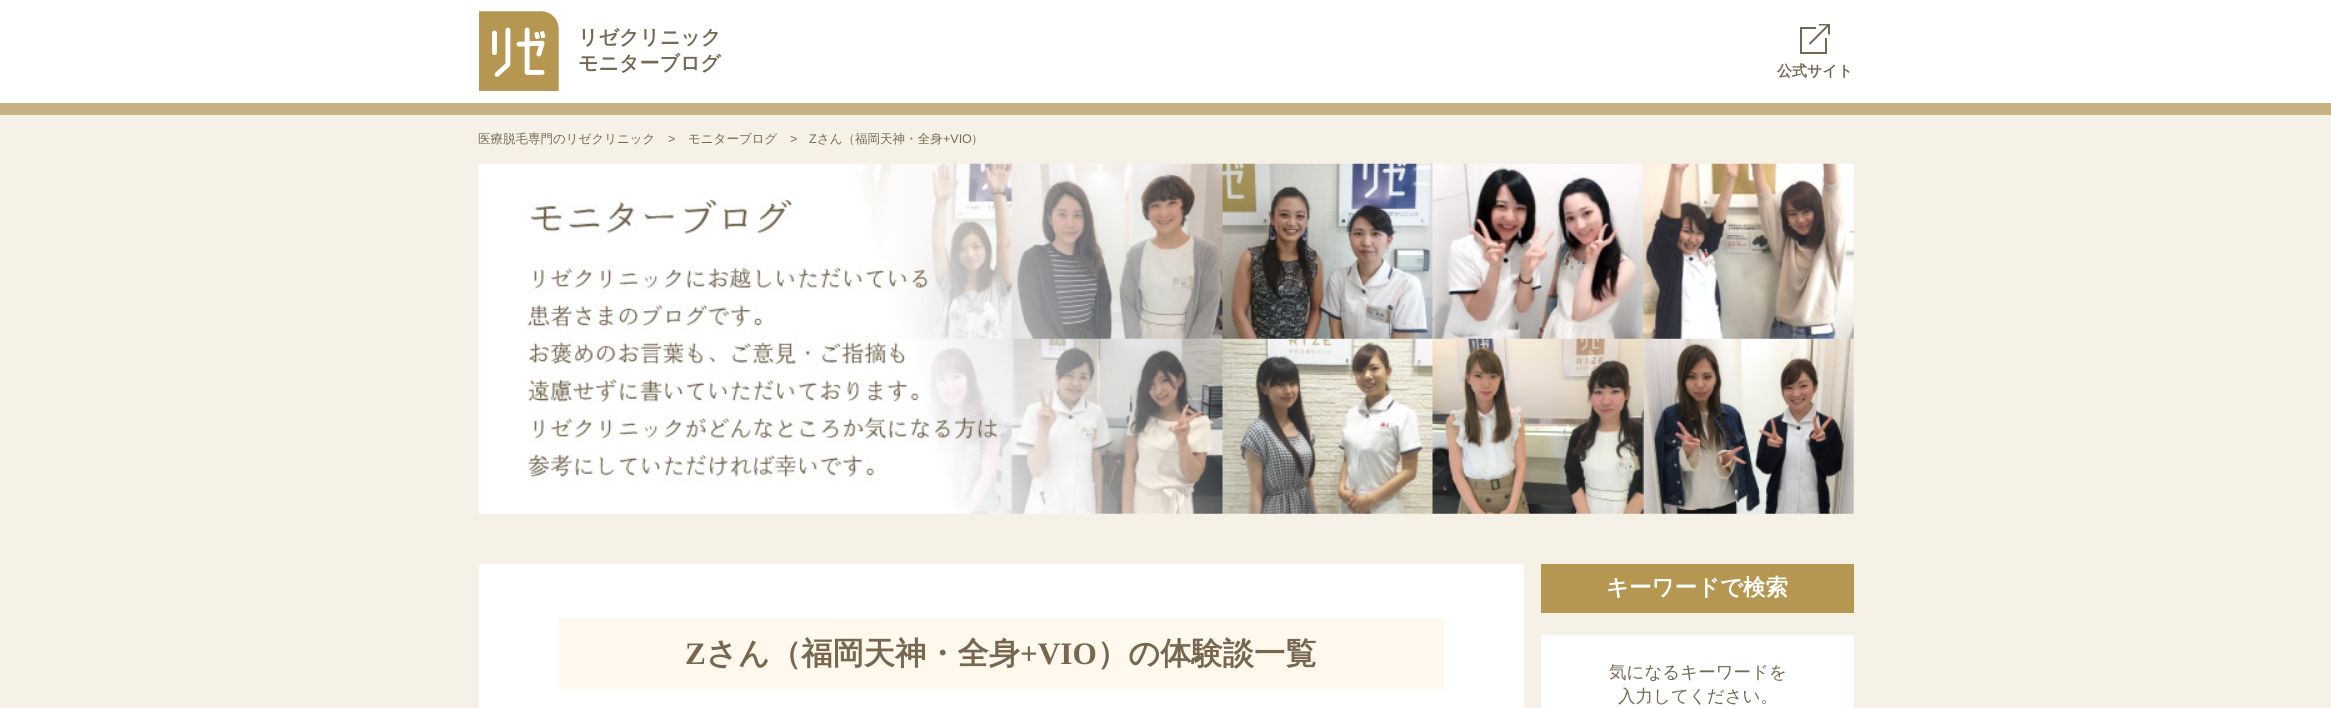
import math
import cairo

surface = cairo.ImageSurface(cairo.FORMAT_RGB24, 2331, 708)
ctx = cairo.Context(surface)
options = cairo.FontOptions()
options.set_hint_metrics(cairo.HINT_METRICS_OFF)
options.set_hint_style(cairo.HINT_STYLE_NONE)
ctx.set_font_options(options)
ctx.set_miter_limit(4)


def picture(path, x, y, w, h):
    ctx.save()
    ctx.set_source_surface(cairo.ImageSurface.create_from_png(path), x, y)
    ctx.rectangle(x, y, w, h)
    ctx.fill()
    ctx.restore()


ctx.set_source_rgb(1, 1, 1)
ctx.paint()
ctx.set_source_rgb(0.776, 0.694, 0.514)
ctx.rectangle(0, 103, 2331, 12)
ctx.fill()
picture("img1.png", 479, 11, 80, 80)
ctx.select_font_face("WenQuanYi Zen Hei", cairo.FONT_SLANT_NORMAL, cairo.FONT_WEIGHT_BOLD)
ctx.set_font_size(20)
ctx.set_source_rgb(0.467, 0.404, 0.318)
ctx.move_to(578, 44)
ctx.show_text("リゼクリニック")
ctx.move_to(578, 70)
ctx.show_text("モニターブログ")
ctx.new_path()
ctx.move_to(1816, 28)
ctx.line_to(1801, 28)
ctx.line_to(1801, 53)
ctx.line_to(1826, 53)
ctx.line_to(1826, 38)
ctx.move_to(1809.5, 44)
ctx.line_to(1829, 24.5)
ctx.stroke()
ctx.save()
ctx.rectangle(1800, 24, 30, 30)
ctx.clip()
ctx.new_path()
ctx.move_to(1819, 24.5)
ctx.line_to(1829, 24.5)
ctx.line_to(1829, 34.5)
ctx.stroke()
ctx.restore()
ctx.set_font_size(15)
ctx.move_to(1777, 76)
ctx.show_text("公式サイト")
ctx.set_source_rgb(0.961, 0.945, 0.906)
ctx.rectangle(0, 115, 2331, 593)
ctx.fill()
ctx.select_font_face("WenQuanYi Zen Hei Medium")
ctx.set_font_size(12.5)
ctx.set_source_rgb(0.467, 0.404, 0.318)
ctx.move_to(478, 143)
ctx.show_text("医療脱毛専門のリゼクリニック")
ctx.select_font_face("Liberation Sans")
ctx.move_to(668, 143)
ctx.show_text(">")
ctx.select_font_face("WenQuanYi Zen Hei Medium")
ctx.move_to(688, 143)
ctx.show_text("モニターブログ")
ctx.select_font_face("Liberation Sans")
ctx.move_to(790, 143)
ctx.show_text(">")
ctx.move_to(809, 143)
ctx.show_text("Z")
ctx.select_font_face("WenQuanYi Zen Hei Medium")
ctx.move_to(817, 143)
ctx.show_text("さん（福岡天神・全身")
ctx.select_font_face("Liberation Sans")
ctx.move_to(943, 143)
ctx.show_text("+VIO")
ctx.select_font_face("WenQuanYi Zen Hei Medium")
ctx.move_to(971, 143)
ctx.show_text("）")
picture("img2.png", 478, 163, 1376, 351)
ctx.set_source_rgb(1, 1, 1)
ctx.rectangle(479, 564, 1045, 144)
ctx.fill()
ctx.set_source_rgb(1, 0.976, 0.929)
ctx.rectangle(559, 618, 885, 71)
ctx.fill()
ctx.select_font_face("Liberation Serif", cairo.FONT_SLANT_NORMAL, cairo.FONT_WEIGHT_BOLD)
ctx.set_font_size(31.25)
ctx.set_source_rgb(0.467, 0.404, 0.318)
ctx.move_to(685, 664)
ctx.show_text("Z")
ctx.select_font_face("WenQuanYi Zen Hei", cairo.FONT_SLANT_NORMAL, cairo.FONT_WEIGHT_BOLD)
ctx.move_to(706, 664)
ctx.show_text("さん（福岡天神・全身")
ctx.select_font_face("Liberation Serif", cairo.FONT_SLANT_NORMAL, cairo.FONT_WEIGHT_BOLD)
ctx.move_to(1020, 664)
ctx.show_text("+VIO")
ctx.select_font_face("WenQuanYi Zen Hei", cairo.FONT_SLANT_NORMAL, cairo.FONT_WEIGHT_BOLD)
ctx.move_to(1097, 664)
ctx.show_text("）の体験談一覧")
ctx.set_source_rgb(0.71, 0.592, 0.318)
ctx.rectangle(1541, 564, 313, 49)
ctx.fill()
ctx.set_font_size(22.5)
ctx.set_source_rgb(1, 1, 1)
ctx.move_to(1606, 595)
ctx.show_text("キーワードで検索")
ctx.rectangle(1541, 635, 313, 73)
ctx.fill()
ctx.select_font_face("WenQuanYi Zen Hei Medium")
ctx.set_font_size(17.5)
ctx.set_source_rgb(0.467, 0.404, 0.318)
ctx.move_to(1609, 678)
ctx.show_text("気になるキーワードを")
ctx.move_to(1618, 702)
ctx.show_text("入力してください。")
surface.write_to_png("page.png")
